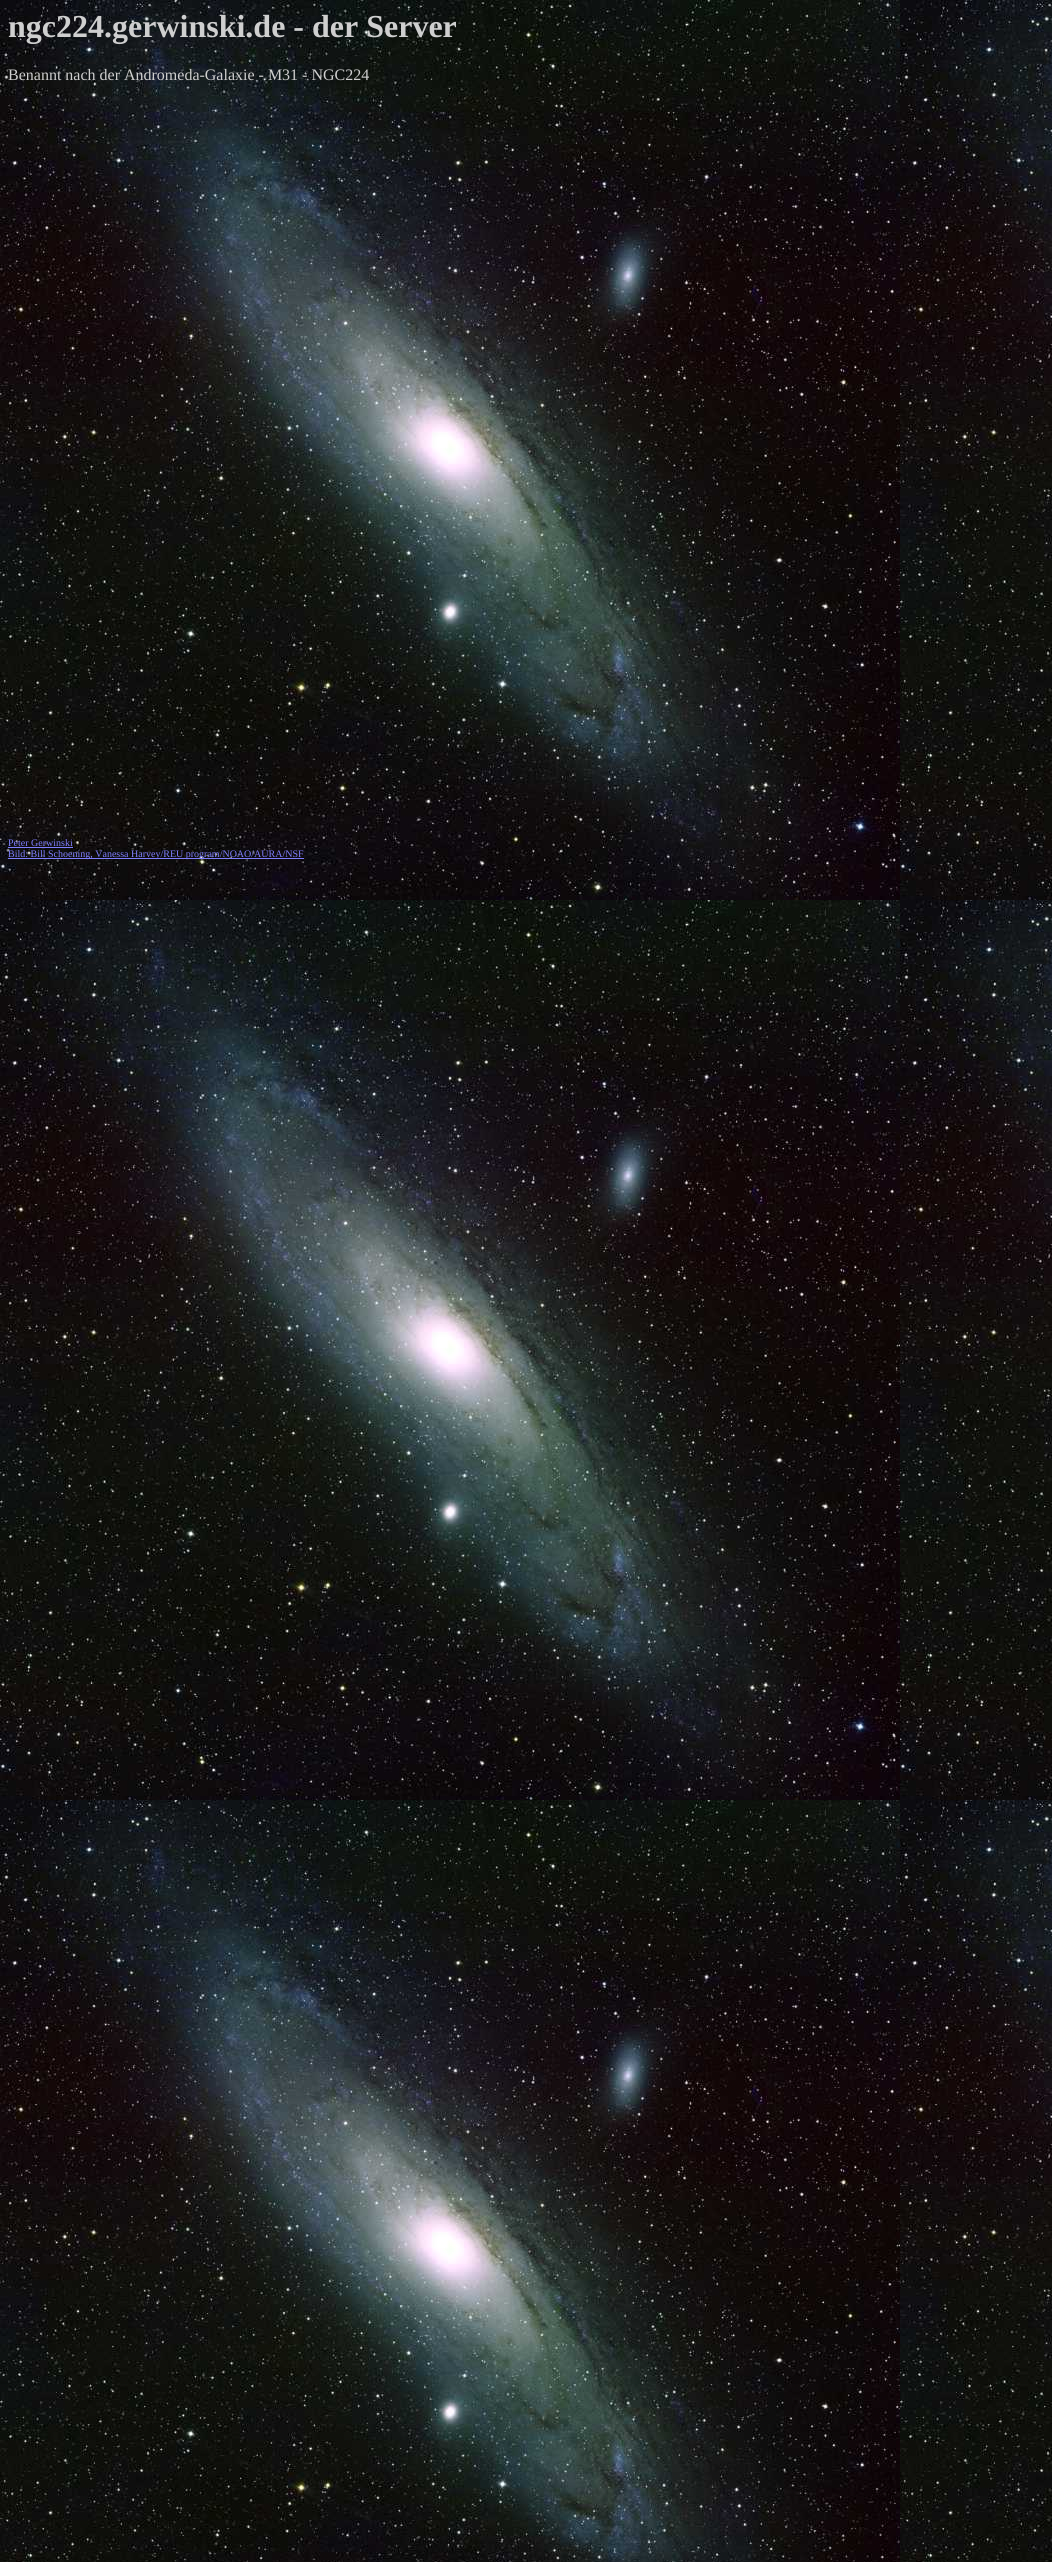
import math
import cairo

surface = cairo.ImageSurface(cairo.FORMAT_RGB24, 1052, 2562)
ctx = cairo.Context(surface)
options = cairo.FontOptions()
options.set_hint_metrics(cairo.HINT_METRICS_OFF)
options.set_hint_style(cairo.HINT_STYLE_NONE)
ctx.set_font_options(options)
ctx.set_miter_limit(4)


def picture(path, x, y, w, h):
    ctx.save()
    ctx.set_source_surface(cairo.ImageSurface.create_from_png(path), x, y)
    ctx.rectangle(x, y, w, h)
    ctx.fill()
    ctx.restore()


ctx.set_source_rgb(1, 1, 1)
ctx.paint()
picture("img1.png", 0, 0, 1052, 2562)
ctx.select_font_face("Liberation Serif", cairo.FONT_SLANT_NORMAL, cairo.FONT_WEIGHT_BOLD)
ctx.set_font_size(32)
ctx.set_source_rgb(0.812, 0.812, 0.812)
ctx.move_to(8, 37)
ctx.show_text("ngc224.gerwinski.de - der Server")
ctx.select_font_face("Liberation Serif")
ctx.set_font_size(16)
ctx.move_to(8, 80)
ctx.show_text("Benannt nach der Andromeda-Galaxie - M31 - NGC224")
ctx.set_font_size(10)
ctx.set_source_rgb(0.498, 0.498, 1)
ctx.move_to(8, 846)
ctx.show_text("Peter Gerwinski")
ctx.rectangle(8, 847, 65, 1)
ctx.fill()
ctx.rectangle(8, 858, 296, 1)
ctx.fill()
ctx.move_to(8, 857)
ctx.show_text("Bild: Bill Schoening, Vanessa Harvey/REU program/NOAO/AURA/NSF")
surface.write_to_png("page.png")
